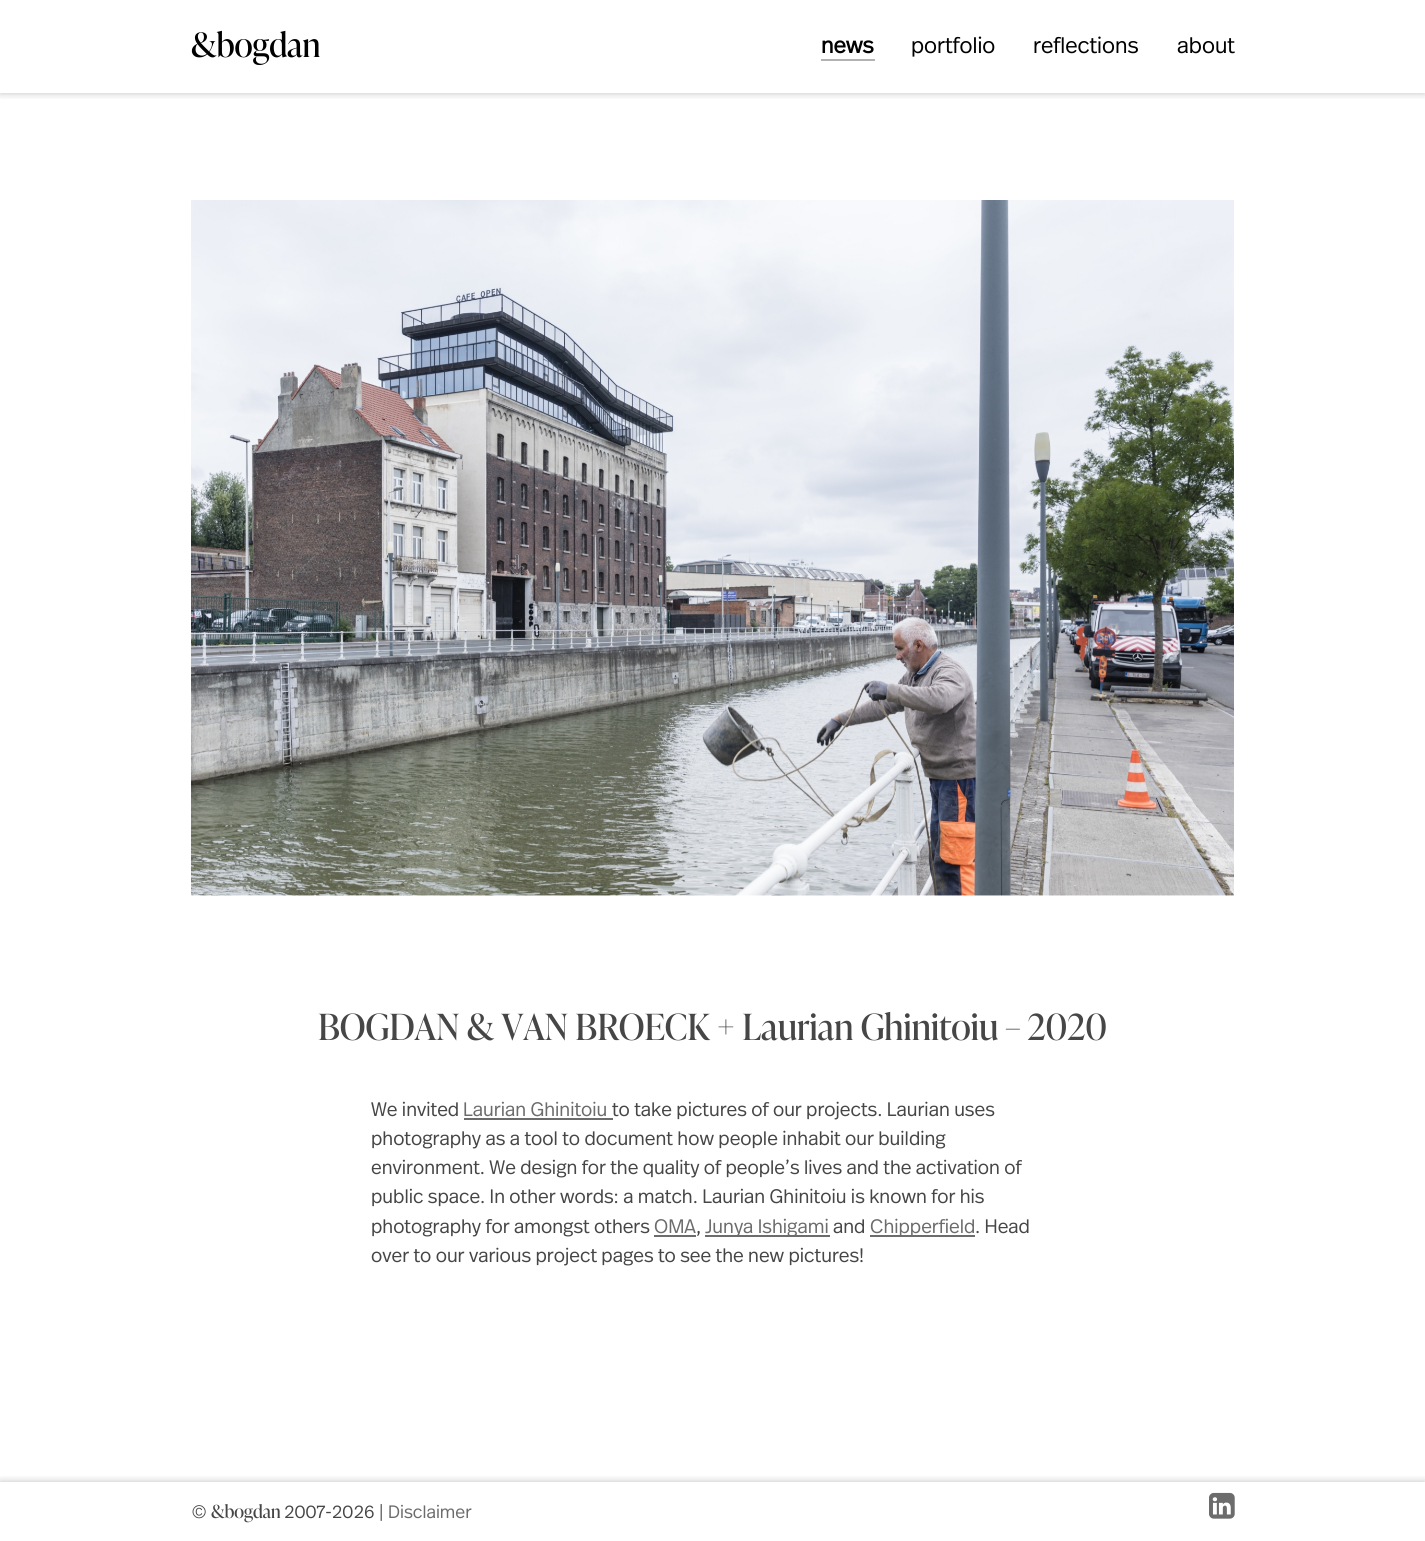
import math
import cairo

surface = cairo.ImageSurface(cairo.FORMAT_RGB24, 1425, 1541)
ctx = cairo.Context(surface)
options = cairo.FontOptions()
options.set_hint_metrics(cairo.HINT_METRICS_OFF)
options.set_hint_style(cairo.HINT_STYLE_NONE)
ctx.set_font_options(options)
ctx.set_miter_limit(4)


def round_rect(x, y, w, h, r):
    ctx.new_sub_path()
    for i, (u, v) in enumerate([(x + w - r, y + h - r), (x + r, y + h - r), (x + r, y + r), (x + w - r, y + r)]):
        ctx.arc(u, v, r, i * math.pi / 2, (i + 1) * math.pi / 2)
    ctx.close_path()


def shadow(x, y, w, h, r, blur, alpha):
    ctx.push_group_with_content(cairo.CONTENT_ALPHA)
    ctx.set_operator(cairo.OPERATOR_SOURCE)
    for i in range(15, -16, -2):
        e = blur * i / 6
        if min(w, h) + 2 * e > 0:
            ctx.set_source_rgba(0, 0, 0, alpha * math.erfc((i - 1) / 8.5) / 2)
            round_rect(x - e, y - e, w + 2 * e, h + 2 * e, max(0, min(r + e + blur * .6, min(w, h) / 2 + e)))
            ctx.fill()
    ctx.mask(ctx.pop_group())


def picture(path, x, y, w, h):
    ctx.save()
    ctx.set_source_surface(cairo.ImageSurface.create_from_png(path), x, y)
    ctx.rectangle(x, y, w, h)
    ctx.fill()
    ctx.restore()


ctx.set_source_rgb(1, 1, 1)
ctx.paint()
ctx.save()
ctx.rectangle(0, 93, 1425, 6)
ctx.clip()
ctx.set_source_rgb(0, 0, 0)
shadow(0, 0, 1425, 93, 0, 4, 0.25)
ctx.restore()
ctx.select_font_face("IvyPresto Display")
ctx.set_font_size(33.5)
ctx.set_source_rgb(0, 0, 0)
ctx.move_to(191, 57)
ctx.show_text("&bogdan")
ctx.select_font_face("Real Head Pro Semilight", cairo.FONT_SLANT_NORMAL, cairo.FONT_WEIGHT_BOLD)
ctx.set_font_size(22.5)
ctx.move_to(821, 53)
ctx.show_text("news")
ctx.set_source_rgb(0.698, 0.698, 0.698)
ctx.rectangle(821, 59, 54, 2)
ctx.fill()
ctx.select_font_face("Real Head Pro Semilight Light")
ctx.set_source_rgb(0, 0, 0)
ctx.move_to(911, 53)
ctx.show_text("portfolio")
ctx.move_to(1033, 53)
ctx.show_text("reflections")
ctx.move_to(1177, 53)
ctx.show_text("about")
picture("img1.png", 191, 200, 1043, 696)
ctx.select_font_face("IvyPresto Display")
ctx.set_font_size(36)
ctx.set_source_rgb(0.275, 0.275, 0.275)
ctx.move_to(318, 1040)
ctx.show_text("BOGDAN & VAN BROECK + Laurian Ghinitoiu – 2020")
ctx.select_font_face("Real Head Pro Semilight Light")
ctx.set_font_size(19.5)
ctx.move_to(371, 1116)
ctx.show_text("We invited")
ctx.set_source_rgb(0.424, 0.424, 0.424)
ctx.move_to(463, 1116)
ctx.show_text("Laurian Ghinitoiu")
ctx.rectangle(464, 1118, 149, 2)
ctx.fill()
ctx.set_source_rgb(0.275, 0.275, 0.275)
ctx.move_to(612, 1116)
ctx.show_text("to take pictures of our projects. Laurian uses")
ctx.move_to(371, 1145)
ctx.show_text("photography as a tool to document how people inhabit our building")
ctx.move_to(371, 1174)
ctx.show_text("environment. We design for the quality of people’s lives and the activation of")
ctx.move_to(371, 1203)
ctx.show_text("public space. In other words: a match. Laurian Ghinitoiu is known for his")
ctx.move_to(371, 1233)
ctx.show_text("photography for amongst others")
ctx.set_source_rgb(0.424, 0.424, 0.424)
ctx.move_to(654, 1233)
ctx.show_text("OMA")
ctx.set_source_rgb(0.275, 0.275, 0.275)
ctx.move_to(696, 1233)
ctx.show_text(",")
ctx.set_source_rgb(0.424, 0.424, 0.424)
ctx.rectangle(654, 1235, 42, 2)
ctx.fill()
ctx.rectangle(705, 1235, 125, 2)
ctx.fill()
ctx.move_to(705, 1233)
ctx.show_text("Junya Ishigami")
ctx.set_source_rgb(0.275, 0.275, 0.275)
ctx.move_to(833, 1233)
ctx.show_text("and")
ctx.set_source_rgb(0.424, 0.424, 0.424)
ctx.rectangle(870, 1235, 105, 2)
ctx.fill()
ctx.move_to(870, 1233)
ctx.show_text("Chipperfield")
ctx.set_source_rgb(0.275, 0.275, 0.275)
ctx.move_to(975, 1233)
ctx.show_text(". Head")
ctx.move_to(371, 1262)
ctx.show_text("over to our various project pages to see the new pictures!")
ctx.save()
ctx.rectangle(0, 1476, 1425, 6)
ctx.clip()
ctx.set_source_rgb(0, 0, 0)
shadow(0, 1482, 1425, 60, 0, 4, 0.25)
ctx.restore()
ctx.set_font_size(18)
ctx.move_to(191, 1518)
ctx.show_text("©")
ctx.select_font_face("IvyPresto Display")
ctx.move_to(211, 1518)
ctx.show_text("&bogdan")
ctx.select_font_face("Real Head Pro Semilight Light")
ctx.move_to(284, 1518)
ctx.show_text("2007-2026 |")
ctx.set_source_rgb(0.424, 0.424, 0.424)
ctx.move_to(388, 1518)
ctx.show_text("Disclaimer")
picture("img2.png", 1209, 1492, 26, 27)
surface.write_to_png("page.png")
